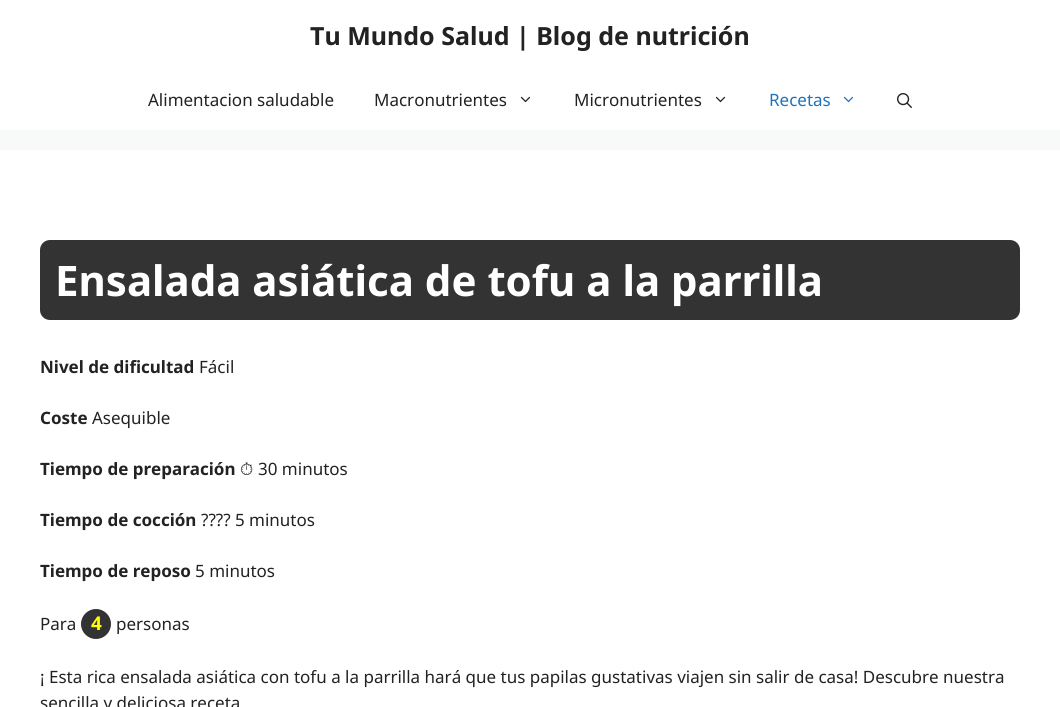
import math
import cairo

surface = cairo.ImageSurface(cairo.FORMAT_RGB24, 1060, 707)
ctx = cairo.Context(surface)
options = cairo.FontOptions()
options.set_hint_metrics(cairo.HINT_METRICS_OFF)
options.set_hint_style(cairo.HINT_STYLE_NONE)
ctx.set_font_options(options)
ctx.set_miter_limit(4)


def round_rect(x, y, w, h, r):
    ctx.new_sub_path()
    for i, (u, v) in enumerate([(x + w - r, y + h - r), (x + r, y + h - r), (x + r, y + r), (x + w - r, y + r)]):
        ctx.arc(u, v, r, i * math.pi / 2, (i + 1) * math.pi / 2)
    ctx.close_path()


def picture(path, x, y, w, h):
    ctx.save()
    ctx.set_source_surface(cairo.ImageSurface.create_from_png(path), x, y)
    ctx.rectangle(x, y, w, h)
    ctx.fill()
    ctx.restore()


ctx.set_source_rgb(0.969, 0.973, 0.976)
ctx.paint()
ctx.set_source_rgb(1, 1, 1)
ctx.rectangle(0, 0, 1060, 130)
ctx.fill()
ctx.select_font_face("Noto Sans", cairo.FONT_SLANT_NORMAL, cairo.FONT_WEIGHT_BOLD)
ctx.set_font_size(25)
ctx.set_source_rgb(0.133, 0.133, 0.133)
ctx.move_to(310, 45)
ctx.show_text("Tu Mundo Salud | Blog de nutrición")
ctx.select_font_face("Noto Sans")
ctx.set_font_size(17)
ctx.move_to(148, 106)
ctx.show_text("Alimentacion saludable")
ctx.move_to(374, 106)
ctx.show_text("Macronutrientes")
picture("img1.png", 520, 96, 11, 7)
ctx.move_to(574, 106)
ctx.show_text("Micronutrientes")
picture("img1.png", 715, 96, 11, 7)
ctx.set_source_rgb(0.118, 0.451, 0.745)
ctx.move_to(769, 106)
ctx.show_text("Recetas")
picture("img2.png", 843, 96, 11, 7)
picture("img3.png", 897, 93, 15, 15)
ctx.set_source_rgb(1, 1, 1)
ctx.rectangle(0, 150, 1060, 557)
ctx.fill()
ctx.set_source_rgb(0.2, 0.2, 0.2)
round_rect(40, 240, 980, 80, 10)
ctx.fill()
ctx.select_font_face("Noto Sans", cairo.FONT_SLANT_NORMAL, cairo.FONT_WEIGHT_BOLD)
ctx.set_font_size(42)
ctx.set_source_rgb(1, 1, 1)
ctx.move_to(55, 296)
ctx.show_text("Ensalada asiática de tofu a la parrilla")
ctx.set_font_size(17)
ctx.set_source_rgb(0.133, 0.133, 0.133)
ctx.move_to(40, 373)
ctx.show_text("Nivel de dificultad")
ctx.select_font_face("Noto Sans")
ctx.move_to(199, 373)
ctx.show_text("Fácil")
ctx.select_font_face("Noto Sans", cairo.FONT_SLANT_NORMAL, cairo.FONT_WEIGHT_BOLD)
ctx.move_to(40, 424)
ctx.show_text("Coste")
ctx.select_font_face("Noto Sans")
ctx.move_to(92, 424)
ctx.show_text("Asequible")
ctx.select_font_face("Noto Sans", cairo.FONT_SLANT_NORMAL, cairo.FONT_WEIGHT_BOLD)
ctx.move_to(40, 475)
ctx.show_text("Tiempo de preparación")
ctx.select_font_face("FreeSerif")
ctx.move_to(240, 475)
ctx.show_text("⏱")
ctx.select_font_face("Noto Sans")
ctx.move_to(258, 475)
ctx.show_text("30 minutos")
ctx.select_font_face("Noto Sans", cairo.FONT_SLANT_NORMAL, cairo.FONT_WEIGHT_BOLD)
ctx.move_to(40, 526)
ctx.show_text("Tiempo de cocción")
ctx.select_font_face("Noto Sans")
ctx.move_to(201, 526)
ctx.show_text("???? 5 minutos")
ctx.select_font_face("Noto Sans", cairo.FONT_SLANT_NORMAL, cairo.FONT_WEIGHT_BOLD)
ctx.move_to(40, 577)
ctx.show_text("Tiempo de reposo")
ctx.select_font_face("Noto Sans")
ctx.move_to(195, 577)
ctx.show_text("5 minutos")
ctx.move_to(40, 630)
ctx.show_text("Para")
ctx.set_source_rgb(0.2, 0.2, 0.2)
ctx.new_path()
ctx.arc(96, 624, 15, 0, 2 * math.pi)
ctx.fill()
ctx.select_font_face("Noto Sans", cairo.FONT_SLANT_NORMAL, cairo.FONT_WEIGHT_BOLD)
ctx.set_font_size(19)
ctx.set_source_rgb(1, 1, 0)
ctx.move_to(91, 630)
ctx.show_text("4")
ctx.select_font_face("Noto Sans")
ctx.set_font_size(17)
ctx.set_source_rgb(0.133, 0.133, 0.133)
ctx.move_to(116, 630)
ctx.show_text("personas")
ctx.move_to(40, 683)
ctx.show_text("¡ Esta rica ensalada asiática con tofu a la parrilla hará que tus papilas gustativas viajen sin salir de casa! Descubre nuestra")
ctx.move_to(40, 709)
ctx.show_text("sencilla y deliciosa receta")
surface.write_to_png("page.png")
